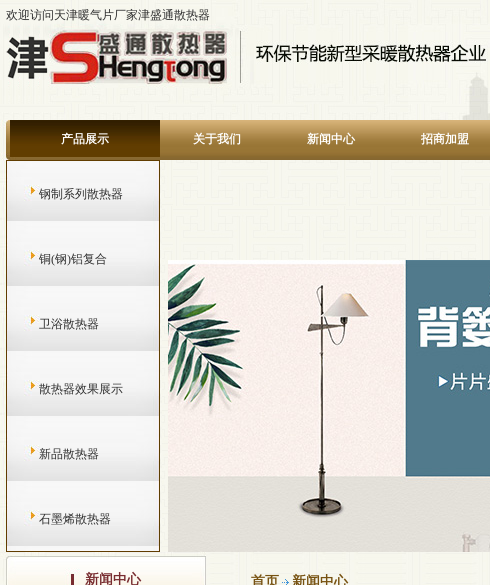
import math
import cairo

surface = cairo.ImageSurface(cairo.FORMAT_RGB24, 490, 585)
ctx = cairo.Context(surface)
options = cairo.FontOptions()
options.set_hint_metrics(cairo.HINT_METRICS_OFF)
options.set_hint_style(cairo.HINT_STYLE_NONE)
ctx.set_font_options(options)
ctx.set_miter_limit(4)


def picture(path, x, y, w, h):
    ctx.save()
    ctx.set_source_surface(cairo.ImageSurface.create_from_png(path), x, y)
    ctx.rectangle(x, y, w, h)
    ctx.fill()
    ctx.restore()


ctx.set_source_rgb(1, 1, 1)
ctx.paint()
picture("img1.png", 0, 160, 490, 392)
picture("img2.png", 0, 0, 490, 120)
ctx.select_font_face("WenQuanYi Zen Hei Medium")
ctx.set_font_size(12)
ctx.set_source_rgb(0.184, 0.184, 0.184)
ctx.move_to(6, 19)
ctx.show_text("欢迎访问天津暖气片厂家津盛通散热器")
picture("img3.png", 0, 120, 490, 40)
picture("img4.png", 10, 120, 150, 37)
ctx.select_font_face("WenQuanYi Zen Hei", cairo.FONT_SLANT_NORMAL, cairo.FONT_WEIGHT_BOLD)
ctx.set_source_rgb(1, 1, 1)
ctx.move_to(61, 143)
ctx.show_text("产品展示")
ctx.move_to(193, 143)
ctx.show_text("关于我们")
ctx.move_to(307, 143)
ctx.show_text("新闻中心")
ctx.move_to(421, 143)
ctx.show_text("招商加盟")
ctx.set_source_rgb(0.38, 0.239, 0)
ctx.rectangle(6, 160, 154, 1)
ctx.fill()
picture("img5.png", 0, 161, 162, 65)
ctx.select_font_face("WenQuanYi Zen Hei Medium")
ctx.set_source_rgb(0.184, 0.184, 0.184)
ctx.move_to(39, 198)
ctx.show_text("钢制系列散热器")
picture("img5.png", 0, 226, 162, 65)
ctx.move_to(39, 263)
ctx.show_text("铜")
ctx.select_font_face("Liberation Serif")
ctx.move_to(51, 263)
ctx.show_text("(")
ctx.select_font_face("WenQuanYi Zen Hei Medium")
ctx.move_to(55, 263)
ctx.show_text("钢")
ctx.select_font_face("Liberation Serif")
ctx.move_to(67, 263)
ctx.show_text(")")
ctx.select_font_face("WenQuanYi Zen Hei Medium")
ctx.move_to(71, 263)
ctx.show_text("铝复合")
picture("img5.png", 0, 291, 162, 65)
ctx.move_to(39, 328)
ctx.show_text("卫浴散热器")
picture("img5.png", 0, 356, 162, 65)
ctx.move_to(39, 393)
ctx.show_text("散热器效果展示")
picture("img5.png", 0, 421, 162, 65)
ctx.move_to(39, 458)
ctx.show_text("新品散热器")
picture("img5.png", 0, 486, 162, 65)
ctx.move_to(39, 523)
ctx.show_text("石墨烯散热器")
ctx.set_source_rgb(0.38, 0.239, 0)
ctx.rectangle(6, 551, 154, 1)
ctx.fill()
picture("img6.png", 168, 260, 322, 292)
picture("img7.png", 0, 552, 206, 33)
ctx.select_font_face("WenQuanYi Zen Hei", cairo.FONT_SLANT_NORMAL, cairo.FONT_WEIGHT_BOLD)
ctx.set_font_size(14)
ctx.set_source_rgb(0.471, 0.173, 0.188)
ctx.move_to(85, 584)
ctx.show_text("新闻中心")
picture("img8.png", 206, 552, 284, 33)
ctx.set_source_rgb(0.467, 0.322, 0.067)
ctx.move_to(251, 586)
ctx.show_text("首页")
picture("img9.png", 282, 579, 7, 6)
ctx.move_to(292, 586)
ctx.show_text("新闻中心")
surface.write_to_png("page.png")
